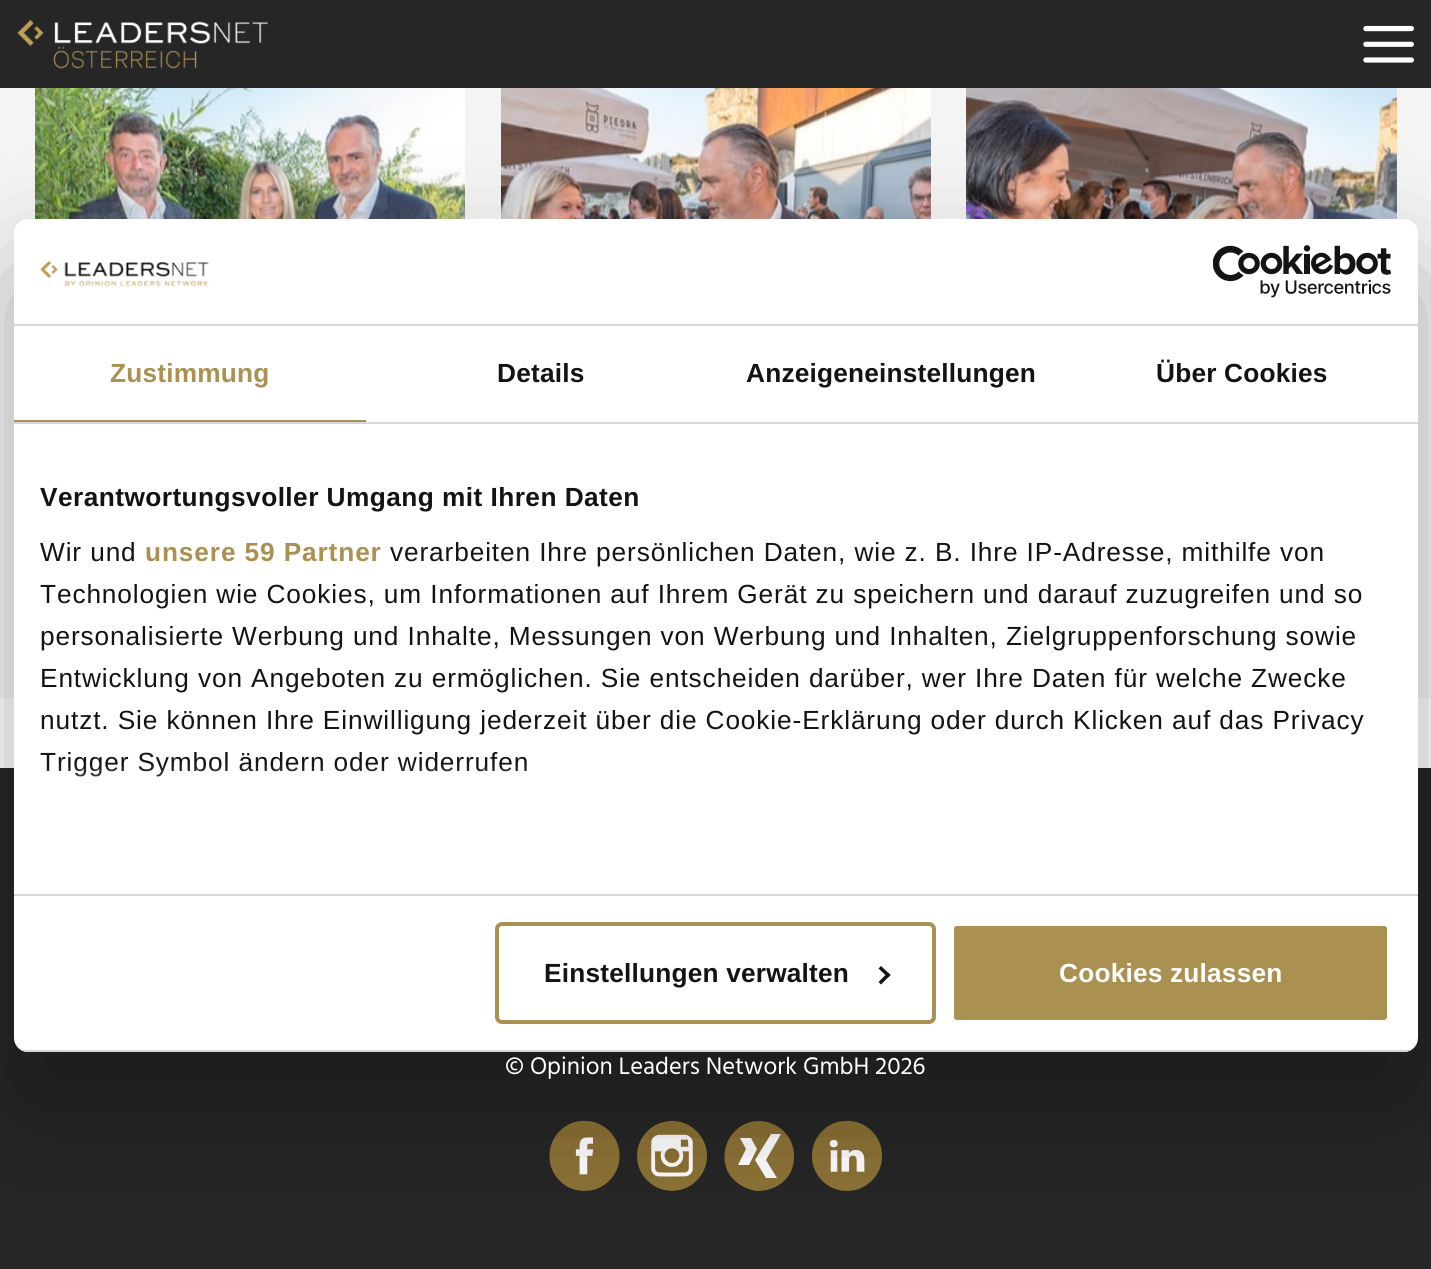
import math
import cairo

surface = cairo.ImageSurface(cairo.FORMAT_RGB24, 1431, 1269)
ctx = cairo.Context(surface)
options = cairo.FontOptions()
options.set_hint_metrics(cairo.HINT_METRICS_OFF)
options.set_hint_style(cairo.HINT_STYLE_NONE)
ctx.set_font_options(options)
ctx.set_miter_limit(4)


def spaced_text(x, y, s, letter, word):
    ctx.move_to(x, y)
    for ch in s:
        ctx.show_text(ch)
        ctx.rel_move_to(letter + word * (ch == ' '), 0)


def round_rect(x, y, w, h, r):
    ctx.new_sub_path()
    for i, (u, v) in enumerate([(x + w - r, y + h - r), (x + r, y + h - r), (x + r, y + r), (x + w - r, y + r)]):
        ctx.arc(u, v, r, i * math.pi / 2, (i + 1) * math.pi / 2)
    ctx.close_path()


def shadow(x, y, w, h, r, blur, alpha):
    ctx.push_group_with_content(cairo.CONTENT_ALPHA)
    ctx.set_operator(cairo.OPERATOR_SOURCE)
    for i in range(15, -16, -2):
        e = blur * i / 6
        if min(w, h) + 2 * e > 0:
            ctx.set_source_rgba(0, 0, 0, alpha * math.erfc((i - 1) / 8.5) / 2)
            round_rect(x - e, y - e, w + 2 * e, h + 2 * e, max(0, min(r + e + blur * .6, min(w, h) / 2 + e)))
            ctx.fill()
    ctx.mask(ctx.pop_group())


def picture(path, x, y, w, h):
    ctx.save()
    ctx.set_source_surface(cairo.ImageSurface.create_from_png(path), x, y)
    ctx.rectangle(x, y, w, h)
    ctx.fill()
    ctx.restore()


ctx.set_source_rgb(1, 1, 1)
ctx.paint()
ctx.set_source_rgb(0.149, 0.149, 0.149)
ctx.rectangle(0, 0, 1431, 88)
ctx.fill()
picture("img1.png", 17, 19, 251, 50)
picture("img2.png", 1363, 25, 51, 38)
ctx.set_source_rgb(0.957, 0.957, 0.957)
ctx.rectangle(0, 88, 1431, 610)
ctx.fill()
picture("img3.png", 35, 88, 430, 131)
picture("img4.png", 501, 88, 430, 131)
picture("img5.png", 966, 88, 431, 131)
ctx.set_source_rgb(0.149, 0.149, 0.149)
ctx.rectangle(0, 768, 1431, 501)
ctx.fill()
ctx.set_source_rgb(1, 1, 1)
round_rect(551, 1124, 67, 66, 33)
ctx.fill()
picture("img8.png", 549, 1120, 71, 71)
ctx.arc(672, 1157, 33, 0, 2 * math.pi)
ctx.fill()
picture("img9.png", 637, 1121, 70, 70)
round_rect(726, 1124, 67, 66, 33)
ctx.fill()
ctx.set_source_rgb(0.549, 0.447, 0.212)
ctx.new_path()
ctx.move_to(756, 1191)
ctx.curve_to(745, 1189, 735, 1183, 729, 1174)
ctx.curve_to(721, 1160, 724, 1142, 735, 1131)
ctx.curve_to(757, 1109, 795, 1126, 794, 1157)
ctx.curve_to(794, 1166, 791, 1174, 785, 1180)
ctx.curve_to(777, 1188, 767, 1191, 756, 1191)
ctx.close_path()
ctx.move_to(777, 1178)
ctx.line_to(766, 1160)
ctx.line_to(781, 1134)
ctx.line_to(771, 1134)
ctx.line_to(755, 1160)
ctx.line_to(766, 1178)
ctx.close_path()
ctx.move_to(753, 1157)
ctx.line_to(757, 1149)
ctx.line_to(751, 1138)
ctx.line_to(740, 1138)
ctx.line_to(746, 1149)
ctx.line_to(738, 1165)
ctx.line_to(749, 1165)
ctx.close_path()
ctx.fill()
ctx.set_source_rgb(1, 1, 1)
ctx.arc(847, 1157, 33, 0, 2 * math.pi)
ctx.fill()
picture("img10.png", 812, 1120, 70, 71)
ctx.set_source_rgb(0, 0, 0)
shadow(14, 275, 1404, 833, 14, 59.5, 0.3)
ctx.set_source_rgb(1, 1, 1)
round_rect(14, 219, 1404, 833, 14)
ctx.fill()
ctx.set_source_rgb(0.839, 0.839, 0.839)
ctx.rectangle(14, 324, 1404, 2)
ctx.fill()
picture("img6.png", 40, 261, 169, 26)
picture("img7.png", 1213, 245, 178, 53)
ctx.rectangle(14, 422, 1404, 2)
ctx.fill()
ctx.set_source_rgb(0.667, 0.569, 0.322)
ctx.rectangle(14, 420, 352, 2)
ctx.fill()
ctx.select_font_face("Liberation Sans", cairo.FONT_SLANT_NORMAL, cairo.FONT_WEIGHT_BOLD)
ctx.set_font_size(26.25)
spaced_text(110, 382, "Zustimmung", 0.2, 0)
ctx.set_source_rgb(0.078, 0.078, 0.078)
spaced_text(497, 382, "Details", 0.2, 0)
spaced_text(746, 382, "Anzeigeneinstellungen", 0.2, 0)
spaced_text(1156, 382, "Über Cookies", 0.2, 0)
ctx.set_source_rgb(0.839, 0.839, 0.839)
ctx.rectangle(14, 894, 1404, 2)
ctx.fill()
ctx.set_source_rgb(0.078, 0.078, 0.078)
spaced_text(40, 506, "Verantwortungsvoller Umgang mit Ihren Daten", 0.45, 0)
ctx.select_font_face("Liberation Sans")
spaced_text(40, 561, "Wir und", 0.88, 0)
ctx.select_font_face("Liberation Sans", cairo.FONT_SLANT_NORMAL, cairo.FONT_WEIGHT_BOLD)
ctx.set_source_rgb(0.667, 0.569, 0.322)
spaced_text(145, 561, "unsere 59 Partner", 0.88, 0)
ctx.select_font_face("Liberation Sans")
ctx.set_source_rgb(0.078, 0.078, 0.078)
spaced_text(390, 561, "verarbeiten Ihre persönlichen Daten, wie z. B. Ihre IP-Adresse, mithilfe von", 0.88, 0)
spaced_text(40, 603, "Technologien wie Cookies, um Informationen auf Ihrem Gerät zu speichern und darauf zuzugreifen und so", 0.88, 0)
spaced_text(40, 645, "personalisierte Werbung und Inhalte, Messungen von Werbung und Inhalten, Zielgruppenforschung sowie", 0.88, 0)
spaced_text(40, 687, "Entwicklung von Angeboten zu ermöglichen. Sie entscheiden darüber, wer Ihre Daten für welche Zwecke", 0.88, 0)
spaced_text(40, 729, "nutzt. Sie können Ihre Einwilligung jederzeit über die Cookie-Erklärung oder durch Klicken auf das Privacy", 0.88, 0)
spaced_text(40, 771, "Trigger Symbol ändern oder widerrufen", 0.88, 0)
gradient = cairo.LinearGradient(704, 894, 704, 763)
gradient.add_color_stop_rgba(0, 1, 1, 1, 1)
gradient.add_color_stop_rgba(0.5, 1, 1, 1, 0.8)
gradient.add_color_stop_rgba(1, 1, 1, 1, 0)
ctx.set_source(gradient)
ctx.rectangle(47, 765, 480, 12)
ctx.fill()
ctx.save()
round_rect(14, 219, 1404, 833, 14)
ctx.clip()
ctx.set_source_rgb(0.839, 0.839, 0.839)
ctx.rectangle(14, 1050, 1404, 2)
ctx.fill()
ctx.restore()
round_rect(497, 924, 437, 98, 5)
ctx.set_source_rgb(0.667, 0.569, 0.322)
ctx.set_line_width(4)
ctx.stroke()
ctx.select_font_face("Liberation Sans", cairo.FONT_SLANT_NORMAL, cairo.FONT_WEIGHT_BOLD)
ctx.set_source_rgb(0.078, 0.078, 0.078)
spaced_text(544, 982, "Einstellungen verwalten", 0.2, 0)
ctx.new_path()
ctx.move_to(881, 966)
ctx.line_to(890.5, 975)
ctx.line_to(888, 977.5)
ctx.line_to(878.5, 968.5)
ctx.close_path()
ctx.fill()
ctx.new_path()
ctx.move_to(888, 972.5)
ctx.line_to(890.5, 975)
ctx.line_to(881, 984.5)
ctx.line_to(878.5, 982)
ctx.close_path()
ctx.fill()
ctx.set_source_rgb(0.667, 0.569, 0.322)
round_rect(952, 924, 437, 98, 5)
ctx.fill_preserve()
ctx.set_source_rgb(1, 1, 1)
ctx.stroke()
spaced_text(1059, 982, "Cookies zulassen", 0.2, 0)
ctx.select_font_face("Hind")
ctx.set_font_size(24.5)
ctx.move_to(505, 1074)
ctx.show_text("© Opinion Leaders Network GmbH 2026")
surface.write_to_png("page.png")
